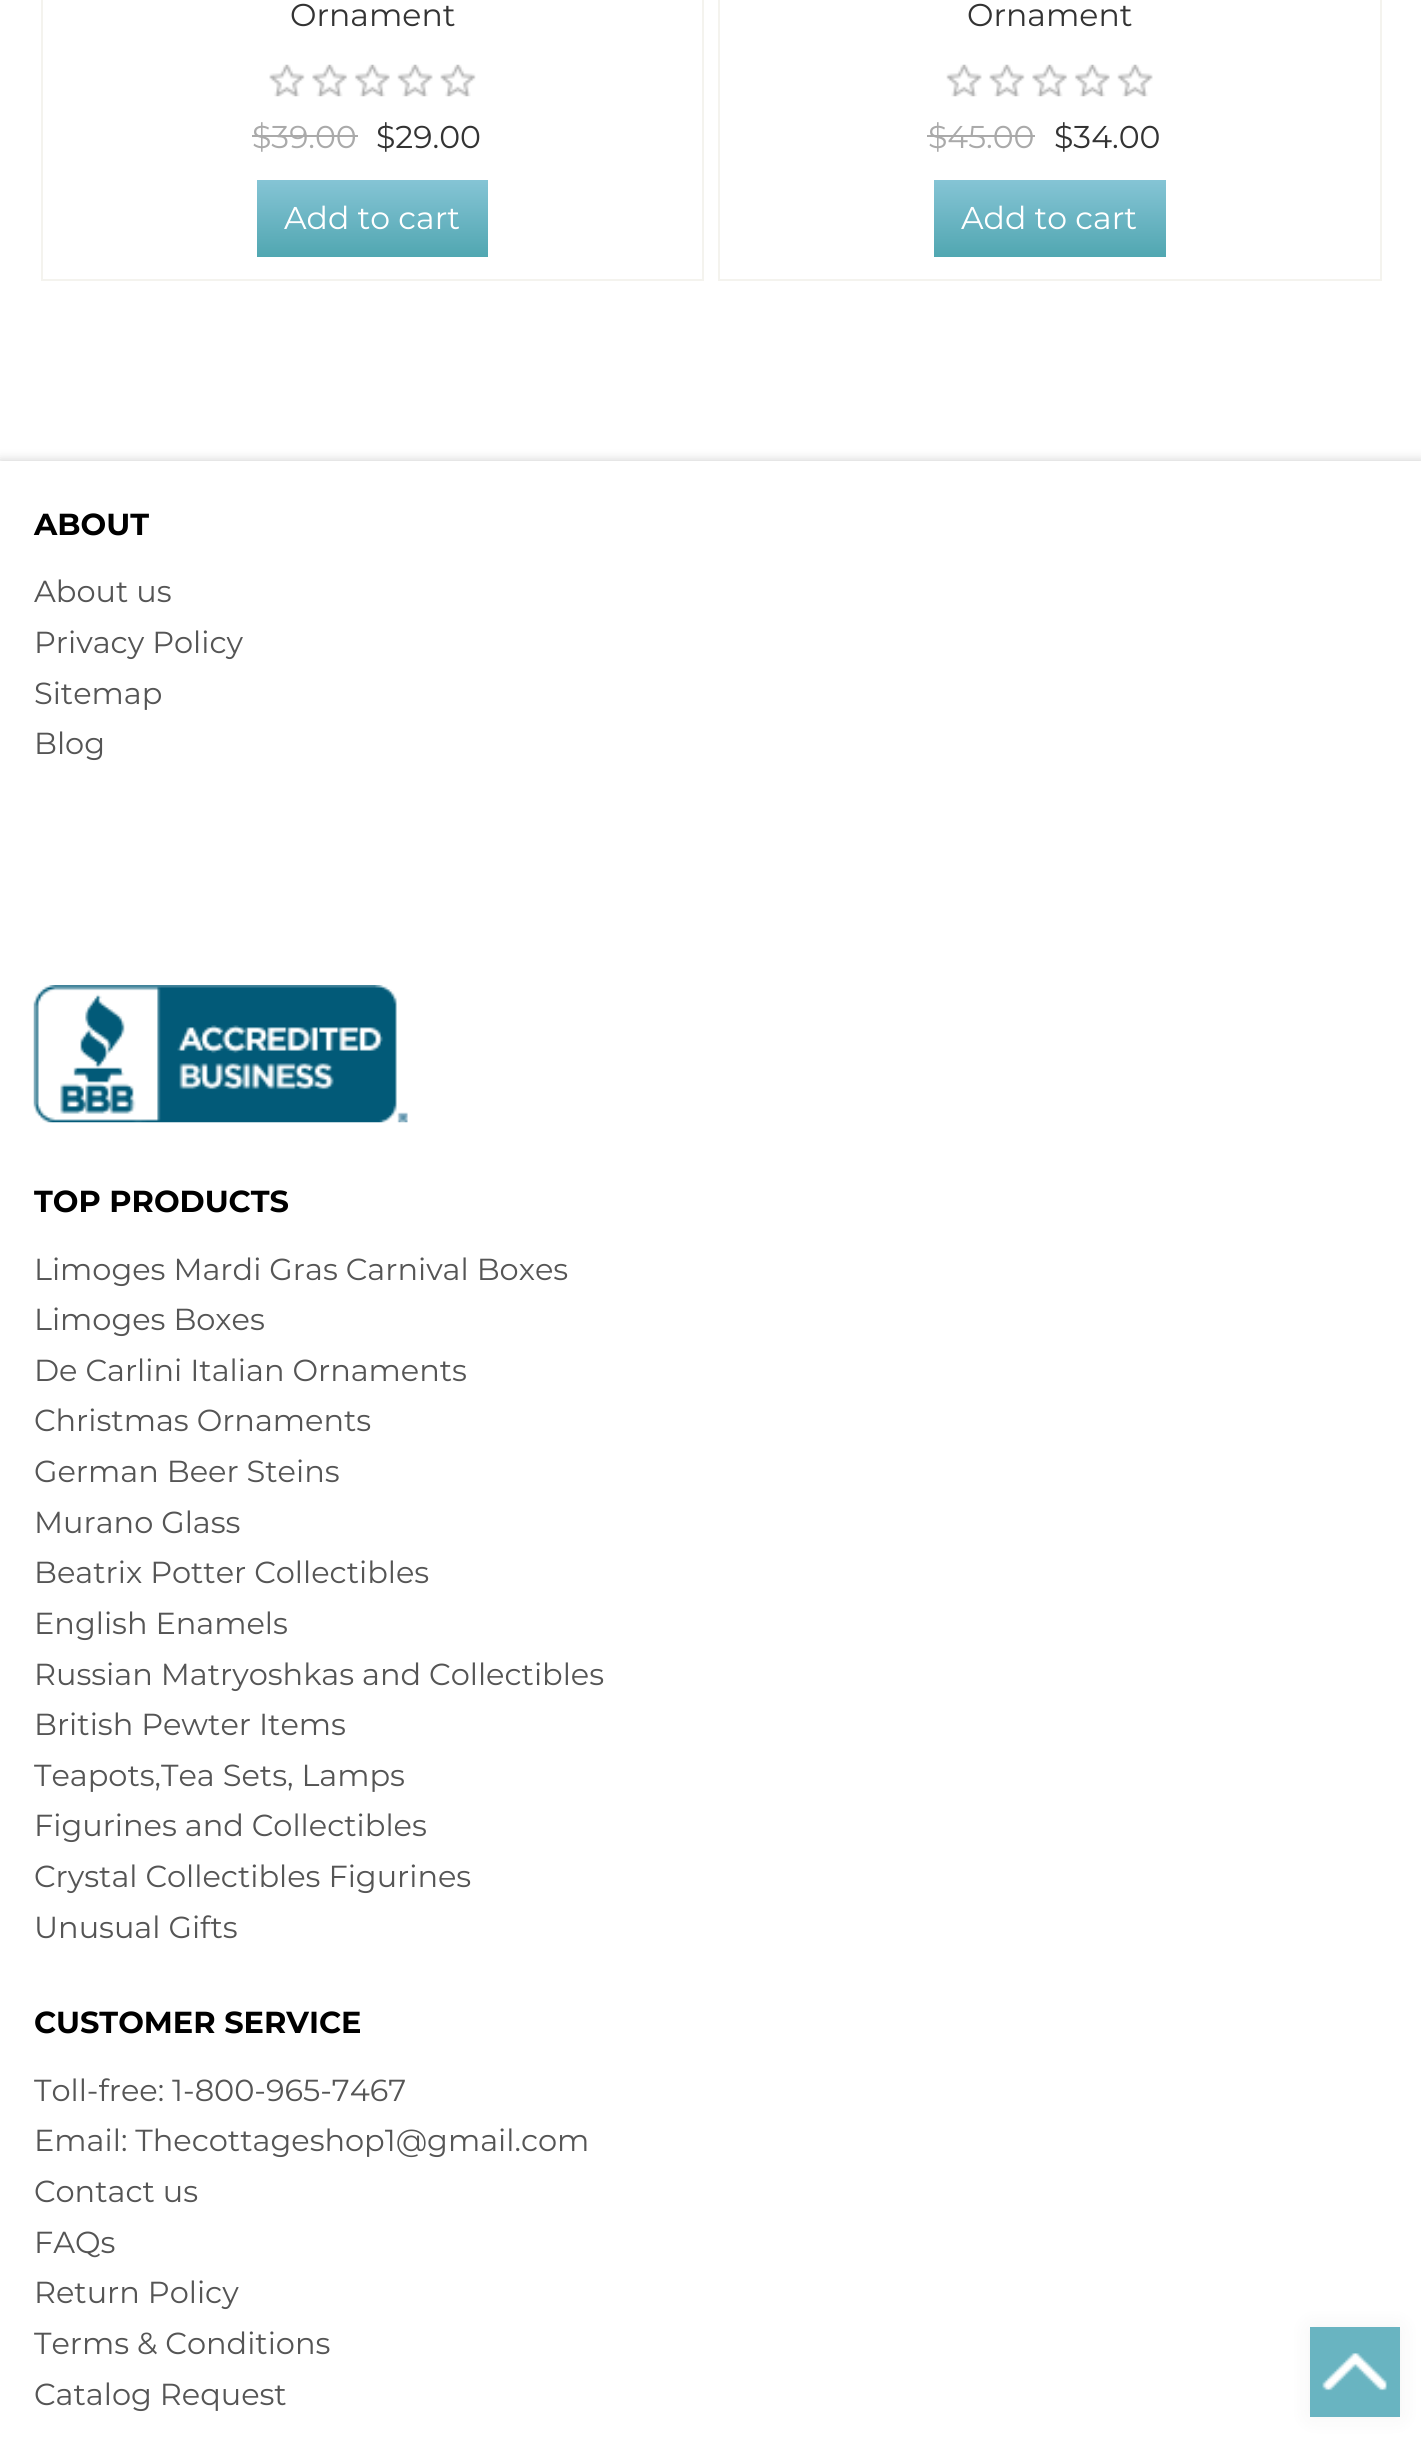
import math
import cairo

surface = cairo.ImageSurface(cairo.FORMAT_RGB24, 1421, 2438)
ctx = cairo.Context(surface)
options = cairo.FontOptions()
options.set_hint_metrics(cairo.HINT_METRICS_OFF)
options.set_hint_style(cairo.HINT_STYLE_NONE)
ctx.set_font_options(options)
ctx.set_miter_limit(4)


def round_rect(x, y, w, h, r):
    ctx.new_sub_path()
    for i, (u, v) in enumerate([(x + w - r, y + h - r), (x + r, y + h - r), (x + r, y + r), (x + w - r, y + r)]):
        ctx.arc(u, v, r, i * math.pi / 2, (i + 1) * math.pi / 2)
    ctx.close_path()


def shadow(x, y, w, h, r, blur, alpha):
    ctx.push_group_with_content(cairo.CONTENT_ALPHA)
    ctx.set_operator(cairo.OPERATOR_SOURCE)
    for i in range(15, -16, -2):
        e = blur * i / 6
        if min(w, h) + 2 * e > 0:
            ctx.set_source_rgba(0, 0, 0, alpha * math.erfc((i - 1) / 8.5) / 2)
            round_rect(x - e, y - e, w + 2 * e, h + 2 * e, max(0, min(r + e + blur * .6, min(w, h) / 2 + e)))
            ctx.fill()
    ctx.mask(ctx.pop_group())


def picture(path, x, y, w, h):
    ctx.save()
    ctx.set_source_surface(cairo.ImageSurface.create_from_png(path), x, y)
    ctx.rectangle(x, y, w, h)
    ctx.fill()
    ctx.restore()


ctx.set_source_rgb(1, 1, 1)
ctx.paint()
ctx.rectangle(42, -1, 661, 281)
ctx.set_source_rgb(0.957, 0.953, 0.933)
ctx.stroke()
ctx.select_font_face("Montserrat")
ctx.set_font_size(31.5)
ctx.set_source_rgb(0.2, 0.2, 0.2)
ctx.move_to(290, 26)
ctx.show_text("Ornament")
picture("img1.png", 269, 64, 207, 33)
ctx.set_source_rgb(0.667, 0.667, 0.667)
ctx.move_to(252, 148)
ctx.show_text("$39.00")
ctx.rectangle(252, 135, 106, 2)
ctx.fill()
ctx.set_source_rgb(0.2, 0.2, 0.2)
ctx.move_to(376, 148)
ctx.show_text("$29.00")
gradient = cairo.LinearGradient(372, 180, 372, 257)
gradient.add_color_stop_rgba(0, 0.522, 0.769, 0.835, 1)
gradient.add_color_stop_rgba(0.25, 0.471, 0.741, 0.8, 1)
gradient.add_color_stop_rgba(0.5, 0.42, 0.71, 0.765, 1)
gradient.add_color_stop_rgba(0.75, 0.369, 0.682, 0.729, 1)
gradient.add_color_stop_rgba(1, 0.314, 0.655, 0.694, 1)
ctx.set_source(gradient)
ctx.rectangle(257, 180, 231, 77)
ctx.fill()
ctx.set_source_rgb(1, 1, 1)
ctx.move_to(284, 229)
ctx.show_text("Add to cart")
ctx.rectangle(719, -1, 662, 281)
ctx.set_source_rgb(0.957, 0.953, 0.933)
ctx.stroke()
ctx.set_source_rgb(0.2, 0.2, 0.2)
ctx.move_to(967, 26)
ctx.show_text("Ornament")
picture("img2.png", 946, 64, 207, 33)
ctx.set_source_rgb(0.667, 0.667, 0.667)
ctx.move_to(928, 148)
ctx.show_text("$45.00")
ctx.rectangle(927, 135, 108, 2)
ctx.fill()
ctx.set_source_rgb(0.2, 0.2, 0.2)
ctx.move_to(1054, 148)
ctx.show_text("$34.00")
gradient = cairo.LinearGradient(1050, 180, 1050, 257)
gradient.add_color_stop_rgba(0, 0.522, 0.769, 0.835, 1)
gradient.add_color_stop_rgba(0.25, 0.471, 0.741, 0.8, 1)
gradient.add_color_stop_rgba(0.5, 0.42, 0.71, 0.765, 1)
gradient.add_color_stop_rgba(0.75, 0.369, 0.682, 0.729, 1)
gradient.add_color_stop_rgba(1, 0.314, 0.655, 0.694, 1)
ctx.set_source(gradient)
ctx.rectangle(934, 180, 232, 77)
ctx.fill()
ctx.set_source_rgb(1, 1, 1)
ctx.move_to(961, 229)
ctx.show_text("Add to cart")
ctx.set_source_rgb(0.8, 0.8, 0.8)
shadow(0, 461, 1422, 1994, 0, 5.5, 1)
ctx.set_source_rgb(1, 1, 1)
ctx.rectangle(0, 461, 1421, 1977)
ctx.fill()
ctx.select_font_face("Montserrat", cairo.FONT_SLANT_NORMAL, cairo.FONT_WEIGHT_BOLD)
ctx.set_font_size(30.4)
ctx.set_source_rgb(0, 0, 0)
ctx.move_to(34, 535)
ctx.show_text("ABOUT")
ctx.select_font_face("Montserrat")
ctx.set_source_rgb(0.333, 0.333, 0.333)
ctx.move_to(34, 602)
ctx.show_text("About us")
ctx.move_to(34, 653)
ctx.show_text("Privacy Policy")
ctx.move_to(34, 704)
ctx.show_text("Sitemap")
ctx.move_to(34, 754)
ctx.show_text("Blog")
picture("img3.png", 33, 985, 375, 138)
ctx.select_font_face("Montserrat", cairo.FONT_SLANT_NORMAL, cairo.FONT_WEIGHT_BOLD)
ctx.set_source_rgb(0, 0, 0)
ctx.move_to(34, 1212)
ctx.show_text("TOP PRODUCTS")
ctx.select_font_face("Montserrat")
ctx.set_source_rgb(0.333, 0.333, 0.333)
ctx.move_to(34, 1280)
ctx.show_text("Limoges Mardi Gras Carnival Boxes")
ctx.move_to(34, 1330)
ctx.show_text("Limoges Boxes")
ctx.move_to(34, 1381)
ctx.show_text("De Carlini Italian Ornaments")
ctx.move_to(34, 1431)
ctx.show_text("Christmas Ornaments")
ctx.move_to(34, 1482)
ctx.show_text("German Beer Steins")
ctx.move_to(34, 1533)
ctx.show_text("Murano Glass")
ctx.move_to(34, 1583)
ctx.show_text("Beatrix Potter Collectibles")
ctx.move_to(34, 1634)
ctx.show_text("English Enamels")
ctx.move_to(34, 1685)
ctx.show_text("Russian Matryoshkas and Collectibles")
ctx.move_to(34, 1735)
ctx.show_text("British Pewter Items")
ctx.move_to(34, 1786)
ctx.show_text("Teapots,Tea Sets, Lamps")
ctx.move_to(34, 1836)
ctx.show_text("Figurines and Collectibles")
ctx.move_to(34, 1887)
ctx.show_text("Crystal Collectibles Figurines")
ctx.move_to(34, 1938)
ctx.show_text("Unusual Gifts")
ctx.select_font_face("Montserrat", cairo.FONT_SLANT_NORMAL, cairo.FONT_WEIGHT_BOLD)
ctx.set_source_rgb(0, 0, 0)
ctx.move_to(34, 2033)
ctx.show_text("CUSTOMER SERVICE")
ctx.select_font_face("Montserrat")
ctx.set_source_rgb(0.333, 0.333, 0.333)
ctx.move_to(34, 2101)
ctx.show_text("Toll-free: 1-800-965-7467")
ctx.move_to(34, 2151)
ctx.show_text("Email: Thecottageshop1@gmail.com")
ctx.move_to(34, 2202)
ctx.show_text("Contact us")
ctx.move_to(34, 2253)
ctx.show_text("FAQs")
ctx.move_to(34, 2303)
ctx.show_text("Return Policy")
ctx.move_to(34, 2354)
ctx.show_text("Terms & Conditions")
ctx.move_to(34, 2405)
ctx.show_text("Catalog Request")
ctx.set_source_rgb(0, 0, 0)
shadow(1310, 2327, 90, 90, 0, 11, 0.05)
ctx.set_source_rgb(0.412, 0.706, 0.757)
ctx.rectangle(1310, 2327, 90, 90)
ctx.fill()
picture("img4.png", 1322, 2353, 65, 38)
surface.write_to_png("page.png")
